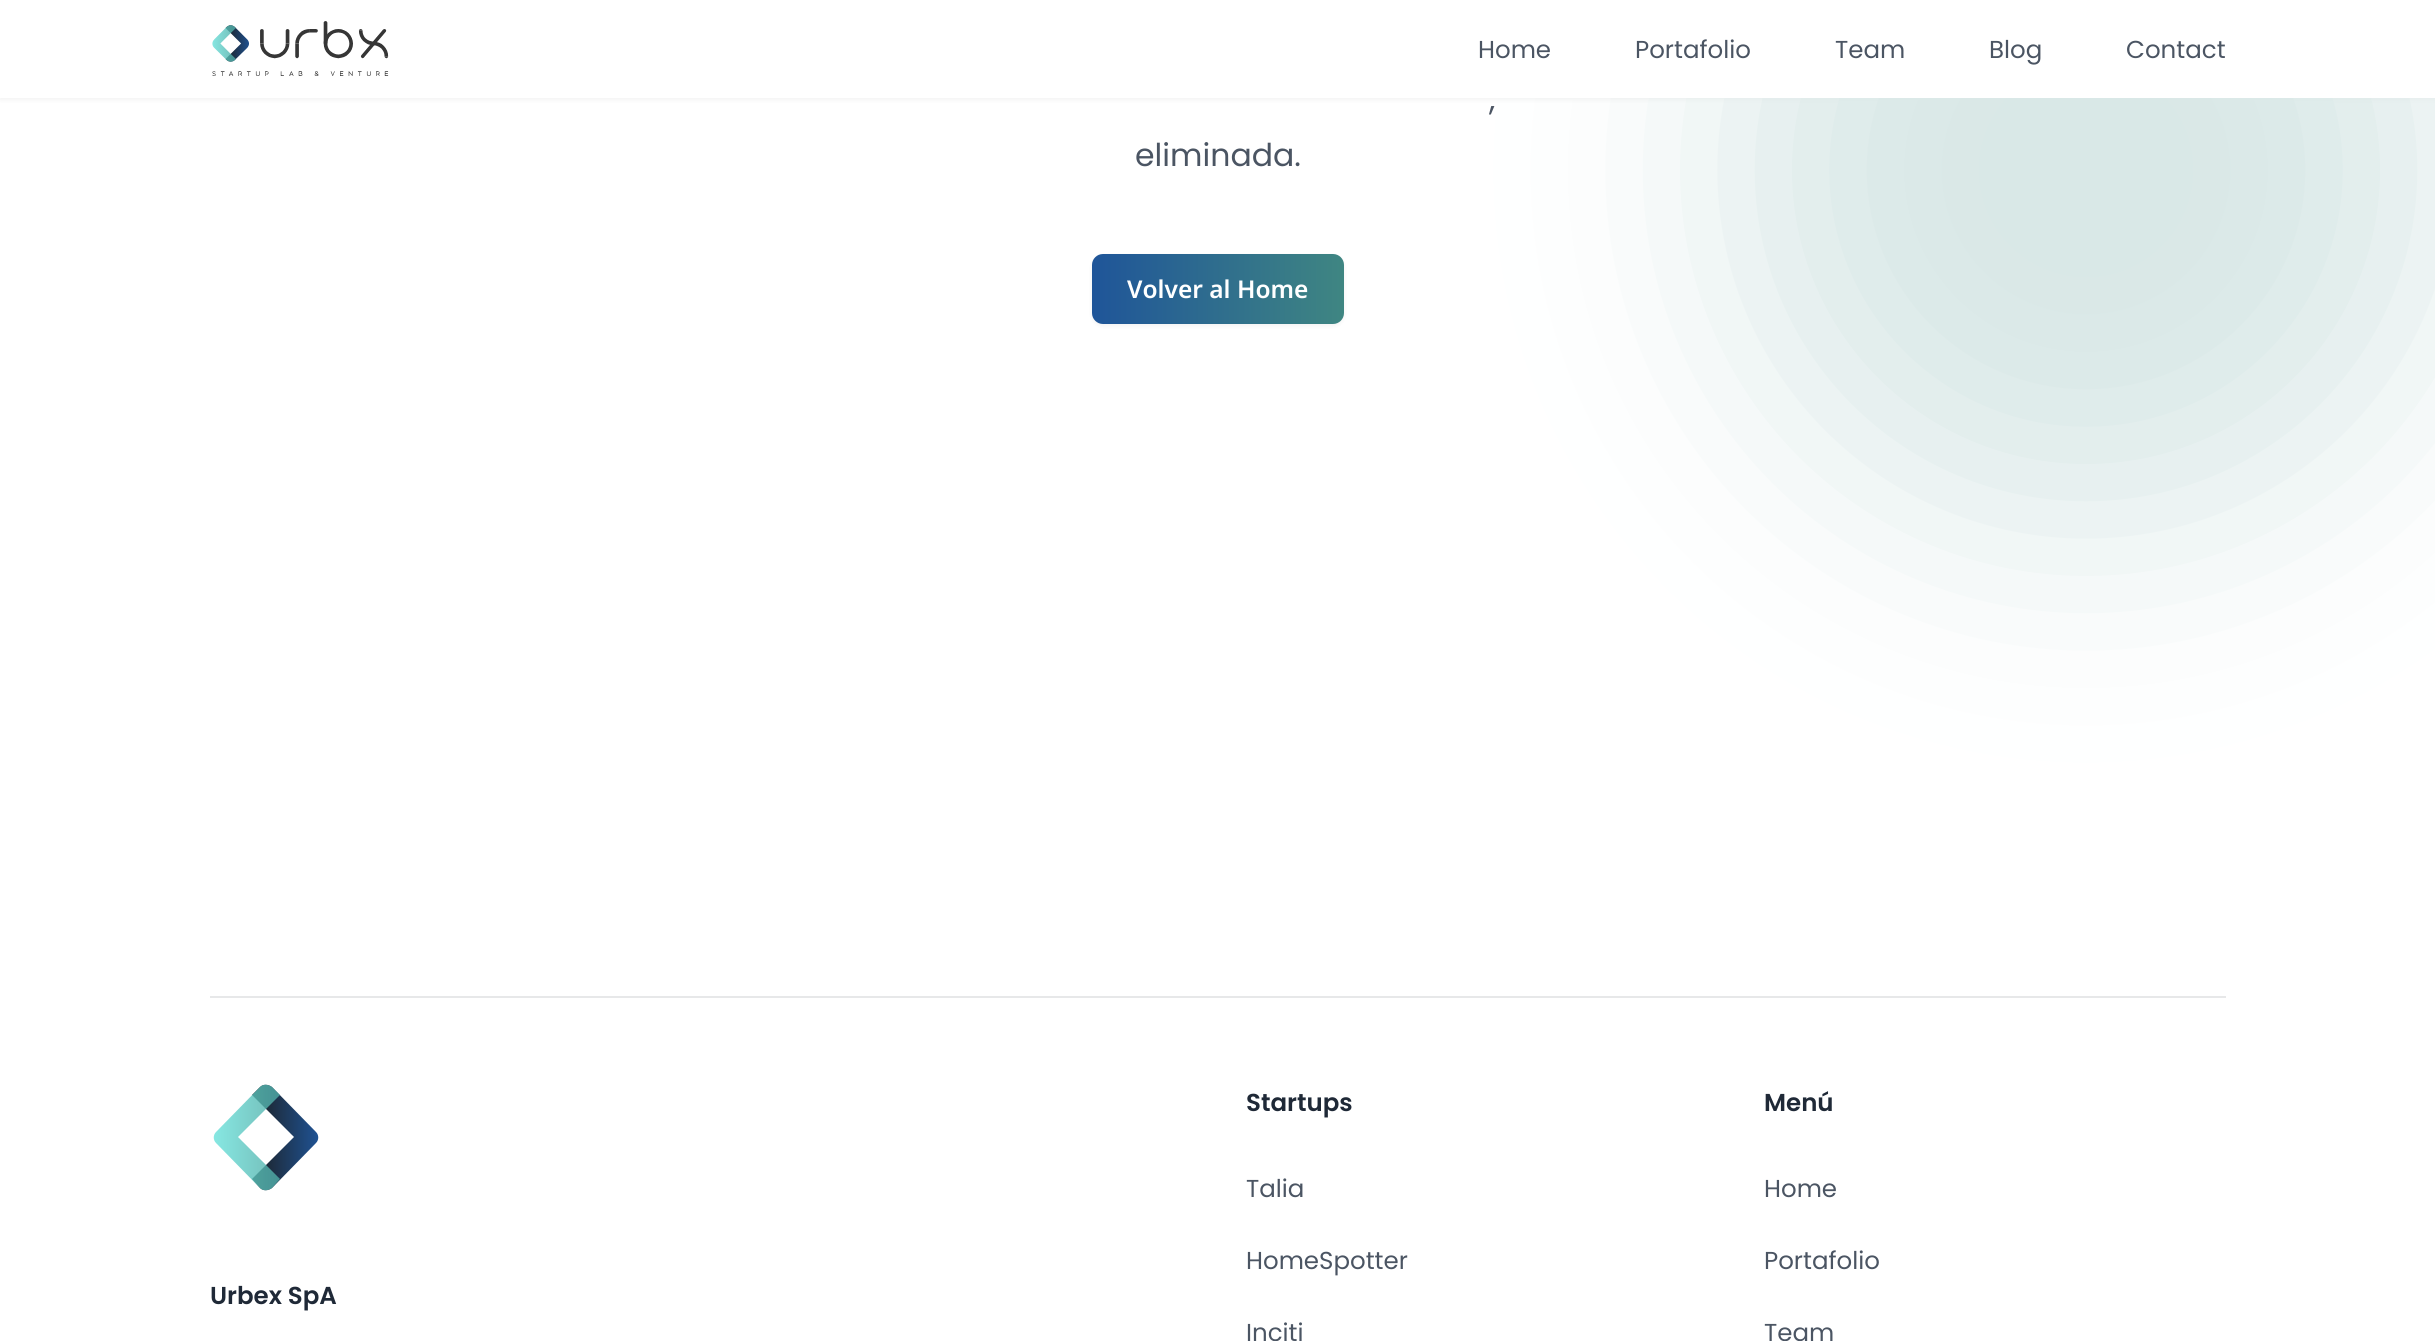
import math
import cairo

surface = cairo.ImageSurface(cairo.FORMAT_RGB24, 2435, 1341)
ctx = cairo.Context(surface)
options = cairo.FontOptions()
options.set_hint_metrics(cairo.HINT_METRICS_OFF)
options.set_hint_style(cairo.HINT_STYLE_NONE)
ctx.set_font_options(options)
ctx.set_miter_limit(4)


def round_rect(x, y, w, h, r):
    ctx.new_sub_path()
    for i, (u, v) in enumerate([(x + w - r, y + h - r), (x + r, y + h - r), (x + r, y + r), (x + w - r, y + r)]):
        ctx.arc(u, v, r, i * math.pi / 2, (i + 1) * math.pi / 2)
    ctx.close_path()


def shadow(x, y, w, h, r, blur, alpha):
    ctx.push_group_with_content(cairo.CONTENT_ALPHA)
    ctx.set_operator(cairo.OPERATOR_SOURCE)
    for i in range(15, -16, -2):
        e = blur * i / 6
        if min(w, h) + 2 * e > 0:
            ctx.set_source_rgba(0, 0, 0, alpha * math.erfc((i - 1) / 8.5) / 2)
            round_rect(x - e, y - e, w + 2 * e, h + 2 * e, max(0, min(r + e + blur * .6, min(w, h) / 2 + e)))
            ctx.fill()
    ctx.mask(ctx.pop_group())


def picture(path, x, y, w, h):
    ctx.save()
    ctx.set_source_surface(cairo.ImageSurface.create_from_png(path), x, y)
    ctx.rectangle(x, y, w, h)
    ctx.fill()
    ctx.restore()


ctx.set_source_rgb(1, 1, 1)
ctx.paint()
ctx.set_source_rgb(0, 0, 0)
shadow(0, 2, 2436, 98, 0, 2, 0.05)
ctx.set_source_rgb(0.851, 0.91, 0.906)
shadow(1736, -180, 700, 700, 350, 112, 1)
ctx.set_source_rgb(1, 1, 1)
ctx.rectangle(0, 0, 2435, 98)
ctx.fill()
picture("img1.png", 212, 21, 177, 55)
ctx.select_font_face("Poppins")
ctx.set_font_size(24.5)
ctx.set_source_rgb(0.294, 0.333, 0.388)
ctx.move_to(1478, 58)
ctx.show_text("Home")
ctx.move_to(1635, 58)
ctx.show_text("Portafolio")
ctx.move_to(1835, 58)
ctx.show_text("Team")
ctx.move_to(1989, 58)
ctx.show_text("Blog")
ctx.move_to(2126, 58)
ctx.show_text("Contact")
ctx.set_font_size(31.5)
ctx.move_to(1489, 110)
ctx.show_text(",")
ctx.move_to(1135, 166)
ctx.show_text("eliminada.")
ctx.set_source_rgb(0, 0, 0)
shadow(1092, 256, 252, 70, 11, 2, 0.05)
gradient = cairo.LinearGradient(1092, 289, 1344, 289)
gradient.add_color_stop_rgba(0, 0.122, 0.333, 0.6, 1)
gradient.add_color_stop_rgba(1, 0.247, 0.525, 0.51, 1)
ctx.set_source(gradient)
round_rect(1092, 254, 252, 70, 11)
ctx.fill()
ctx.select_font_face("Noto Sans SemiBold")
ctx.set_font_size(24.5)
ctx.set_source_rgb(1, 1, 1)
ctx.move_to(1127, 298)
ctx.show_text("Volver al Home")
ctx.set_source_rgb(0.906, 0.91, 0.914)
ctx.rectangle(210, 996, 2016, 2)
ctx.fill()
gradient = cairo.LinearGradient(322, 1137, 210, 1137)
gradient.add_color_stop_rgba(0, 0.122, 0.333, 0.6, 1)
gradient.add_color_stop_rgba(0.55, 0.114, 0.149, 0.184, 1)
ctx.set_source(gradient)
ctx.new_path()
ctx.move_to(316, 1132)
ctx.curve_to(319, 1135, 319, 1140, 316, 1143)
ctx.line_to(272, 1188)
ctx.curve_to(268, 1191, 263, 1191, 260, 1188)
ctx.line_to(252, 1179)
ctx.line_to(294, 1137)
ctx.line_to(252, 1095)
ctx.line_to(260, 1087)
ctx.curve_to(263, 1084, 268, 1084, 272, 1087)
ctx.close_path()
ctx.fill()
gradient = cairo.LinearGradient(210, 1137, 322, 1137)
gradient.add_color_stop_rgba(0, 0.416, 0.898, 0.871, 0.8)
gradient.add_color_stop_rgba(1, 0.247, 0.525, 0.51, 0.8)
ctx.set_source(gradient)
ctx.new_path()
ctx.move_to(216, 1143)
ctx.curve_to(213, 1140, 213, 1135, 216, 1132)
ctx.line_to(260, 1087)
ctx.curve_to(263, 1084, 268, 1084, 272, 1087)
ctx.line_to(280, 1095)
ctx.line_to(238, 1137)
ctx.line_to(280, 1179)
ctx.line_to(272, 1188)
ctx.curve_to(268, 1191, 263, 1191, 260, 1188)
ctx.close_path()
ctx.fill()
ctx.select_font_face("Poppins SemiBold")
ctx.set_source_rgb(0.122, 0.161, 0.216)
ctx.move_to(210, 1304)
ctx.show_text("Urbex SpA")
ctx.move_to(1246, 1111)
ctx.show_text("Startups")
ctx.select_font_face("Poppins")
ctx.set_source_rgb(0.294, 0.333, 0.388)
ctx.move_to(1246, 1197)
ctx.show_text("Talia")
ctx.move_to(1246, 1269)
ctx.show_text("HomeSpotter")
ctx.move_to(1246, 1341)
ctx.show_text("Inciti")
ctx.select_font_face("Poppins SemiBold")
ctx.set_source_rgb(0.122, 0.161, 0.216)
ctx.move_to(1764, 1111)
ctx.show_text("Menú")
ctx.select_font_face("Poppins")
ctx.set_source_rgb(0.294, 0.333, 0.388)
ctx.move_to(1764, 1197)
ctx.show_text("Home")
ctx.move_to(1764, 1269)
ctx.show_text("Portafolio")
ctx.move_to(1764, 1341)
ctx.show_text("Team")
surface.write_to_png("page.png")
